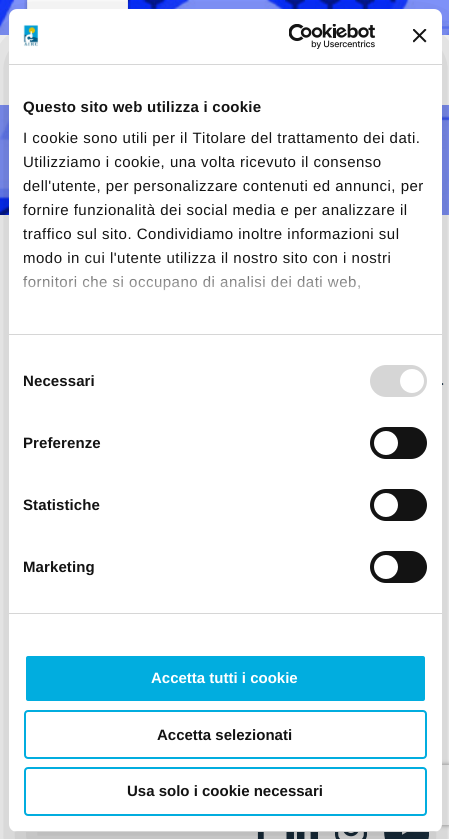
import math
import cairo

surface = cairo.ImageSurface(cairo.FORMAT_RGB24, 449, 839)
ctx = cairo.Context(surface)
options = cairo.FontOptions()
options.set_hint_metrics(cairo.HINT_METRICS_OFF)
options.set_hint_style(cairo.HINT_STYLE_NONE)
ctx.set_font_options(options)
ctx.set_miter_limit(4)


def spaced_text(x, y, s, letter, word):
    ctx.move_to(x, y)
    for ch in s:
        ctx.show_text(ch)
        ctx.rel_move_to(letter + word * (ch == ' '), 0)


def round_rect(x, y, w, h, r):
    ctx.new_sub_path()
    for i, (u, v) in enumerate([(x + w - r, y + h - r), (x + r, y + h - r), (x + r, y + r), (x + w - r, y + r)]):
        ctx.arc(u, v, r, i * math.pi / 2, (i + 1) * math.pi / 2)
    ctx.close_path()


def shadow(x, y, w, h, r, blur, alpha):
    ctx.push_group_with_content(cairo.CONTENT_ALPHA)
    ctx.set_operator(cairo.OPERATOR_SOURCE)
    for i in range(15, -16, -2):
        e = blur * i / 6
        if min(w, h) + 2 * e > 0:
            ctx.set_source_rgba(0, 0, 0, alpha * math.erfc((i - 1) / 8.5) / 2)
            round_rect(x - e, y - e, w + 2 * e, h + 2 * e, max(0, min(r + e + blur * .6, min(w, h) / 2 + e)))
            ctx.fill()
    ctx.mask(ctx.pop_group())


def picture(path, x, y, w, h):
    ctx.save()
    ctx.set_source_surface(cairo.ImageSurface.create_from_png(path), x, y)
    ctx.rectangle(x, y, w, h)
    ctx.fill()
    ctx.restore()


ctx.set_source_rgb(1, 1, 1)
ctx.paint()
picture("img5.png", 0, 0, 449, 215)
ctx.set_source_rgb(1, 1, 1)
ctx.rectangle(0, 35, 449, 70)
ctx.fill()
picture("img4.png", 24, 0, 107, 9)
picture("img6.png", 257, 832, 7, 7)
picture("img7.png", 286, 832, 32, 7)
picture("img8.png", 335, 832, 32, 7)
picture("img9.png", 384, 832, 45, 7)
ctx.set_source_rgb(0, 0, 0)
shadow(9, 41, 433, 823, 8, 34, 0.3)
ctx.select_font_face("Graphik")
ctx.set_font_size(16)
ctx.set_source_rgb(0.102, 0.188, 0.251)
ctx.move_to(440, 385)
ctx.show_text(".")
ctx.save()
ctx.set_fill_rule(cairo.FILL_RULE_EVEN_ODD)
ctx.new_path()
ctx.move_to(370, 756)
ctx.line_to(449, 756)
ctx.line_to(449, 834)
ctx.line_to(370, 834)
ctx.close_path()
ctx.move_to(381, 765)
ctx.line_to(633, 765)
ctx.curve_to(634, 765, 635, 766, 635, 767)
ctx.line_to(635, 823)
ctx.curve_to(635, 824, 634, 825, 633, 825)
ctx.line_to(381, 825)
ctx.curve_to(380, 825, 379, 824, 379, 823)
ctx.line_to(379, 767)
ctx.curve_to(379, 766, 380, 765, 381, 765)
ctx.close_path()
ctx.clip()
ctx.set_source_rgb(0.502, 0.502, 0.502)
shadow(379, 765, 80, 60, 2, 2.5, 1)
ctx.restore()
ctx.set_source_rgb(1, 1, 1)
round_rect(9, 9, 433, 823, 8)
ctx.fill()
ctx.set_source_rgb(0.839, 0.839, 0.839)
ctx.rectangle(9, 64, 433, 1)
ctx.fill()
picture("img1.png", 23, 24, 16, 23)
picture("img2.png", 289, 24, 87, 25)
picture("img3.png", 413, 29, 14, 14)
ctx.rectangle(9, 334, 433, 1)
ctx.fill()
ctx.select_font_face("Liberation Sans", cairo.FONT_SLANT_NORMAL, cairo.FONT_WEIGHT_BOLD)
ctx.set_font_size(15)
ctx.set_source_rgb(0.078, 0.078, 0.078)
spaced_text(23, 112, "Questo sito web utilizza i cookie", 0.25, 0)
ctx.select_font_face("Liberation Sans")
spaced_text(23, 143, "I cookie sono utili per il Titolare del trattamento dei dati.", 0.5, 0)
spaced_text(23, 167, "Utilizziamo i cookie, una volta ricevuto il consenso", 0.5, 0)
spaced_text(23, 191, "dell'utente, per personalizzare contenuti ed annunci, per", 0.5, 0)
spaced_text(23, 215, "fornire funzionalità dei social media e per analizzare il", 0.5, 0)
spaced_text(23, 239, "traffico sul sito. Condividiamo inoltre informazioni sul", 0.5, 0)
spaced_text(23, 263, "modo in cui l'utente utilizza il nostro sito con i nostri", 0.5, 0)
spaced_text(23, 287, "fornitori che si occupano di analisi dei dati web,", 0.5, 0)
gradient = cairo.LinearGradient(219, 334, 219, 259)
gradient.add_color_stop_rgba(0, 1, 1, 1, 1)
gradient.add_color_stop_rgba(0.5, 1, 1, 1, 0.8)
gradient.add_color_stop_rgba(1, 1, 1, 1, 0)
ctx.set_source(gradient)
ctx.rectangle(23, 260, 367, 31)
ctx.fill()
ctx.set_source_rgb(0.839, 0.839, 0.839)
ctx.rectangle(9, 613, 433, 1)
ctx.fill()
ctx.select_font_face("Liberation Sans", cairo.FONT_SLANT_NORMAL, cairo.FONT_WEIGHT_BOLD)
ctx.set_source_rgb(0.078, 0.078, 0.078)
spaced_text(23, 386, "Necessari", 0.1, 0)
ctx.set_source_rgb(0.839, 0.839, 0.839)
round_rect(370, 365, 57, 32, 16)
ctx.fill()
ctx.set_source_rgb(1, 1, 1)
ctx.arc(412, 381, 12, 0, 2 * math.pi)
ctx.fill()
ctx.set_source_rgb(0.078, 0.078, 0.078)
spaced_text(23, 448, "Preferenze", 0.1, 0)
round_rect(370, 427, 57, 32, 16)
ctx.fill()
ctx.set_source_rgb(1, 1, 1)
ctx.arc(386, 443, 12, 0, 2 * math.pi)
ctx.fill()
ctx.set_source_rgb(0.078, 0.078, 0.078)
spaced_text(23, 510, "Statistiche", 0.1, 0)
round_rect(370, 489, 57, 32, 16)
ctx.fill()
ctx.set_source_rgb(1, 1, 1)
ctx.arc(386, 505, 12, 0, 2 * math.pi)
ctx.fill()
ctx.set_source_rgb(0.078, 0.078, 0.078)
spaced_text(23, 572, "Marketing", 0.1, 0)
round_rect(370, 551, 57, 32, 16)
ctx.fill()
ctx.set_source_rgb(1, 1, 1)
ctx.arc(386, 567, 12, 0, 2 * math.pi)
ctx.fill()
ctx.save()
round_rect(9, 9, 433, 823, 8)
ctx.clip()
ctx.set_source_rgb(0.839, 0.839, 0.839)
ctx.rectangle(9, 831, 433, 1)
ctx.fill()
ctx.restore()
ctx.set_source_rgb(0.004, 0.678, 0.875)
round_rect(25, 655, 401, 47, 3)
ctx.fill_preserve()
ctx.set_source_rgb(1, 1, 1)
ctx.stroke()
ctx.move_to(151, 683)
ctx.show_text("Accetta tutti i cookie")
round_rect(25, 711, 401, 47, 3)
ctx.set_source_rgb(0.004, 0.678, 0.875)
ctx.stroke()
ctx.set_source_rgb(0.078, 0.078, 0.078)
ctx.move_to(157, 740)
ctx.show_text("Accetta selezionati")
round_rect(25, 768, 401, 47, 3)
ctx.set_source_rgb(0.004, 0.678, 0.875)
ctx.stroke()
ctx.set_source_rgb(0.078, 0.078, 0.078)
ctx.move_to(127, 796)
ctx.show_text("Usa solo i cookie necessari")
surface.write_to_png("page.png")
